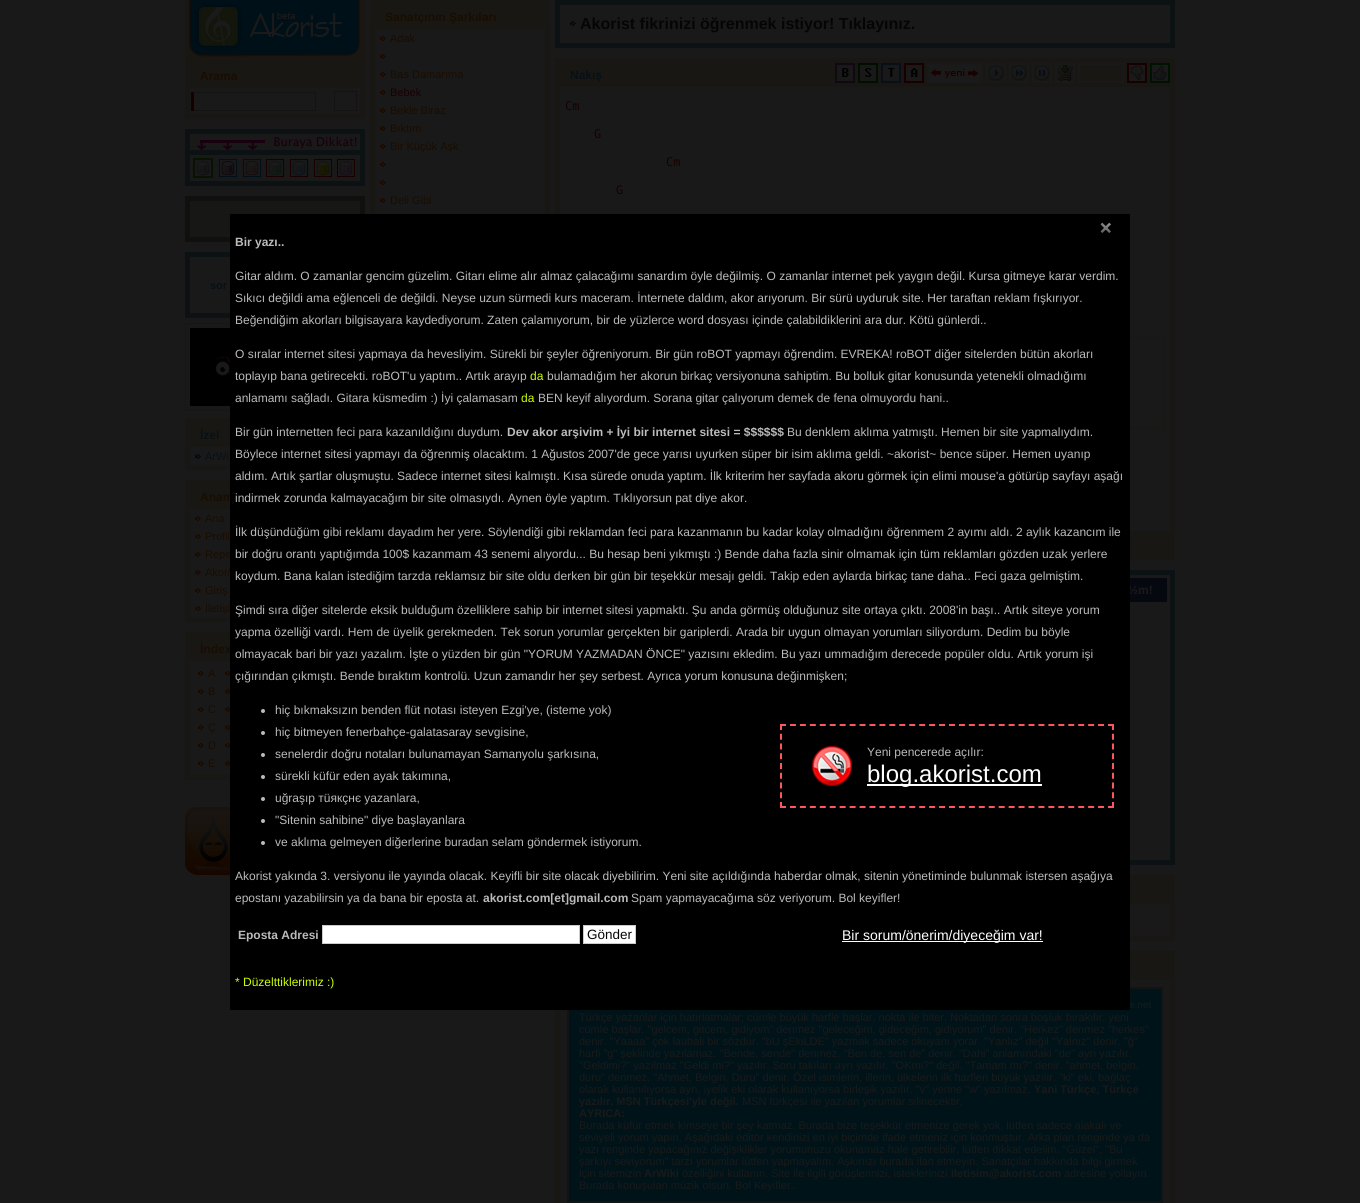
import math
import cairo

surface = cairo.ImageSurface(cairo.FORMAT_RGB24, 1360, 1203)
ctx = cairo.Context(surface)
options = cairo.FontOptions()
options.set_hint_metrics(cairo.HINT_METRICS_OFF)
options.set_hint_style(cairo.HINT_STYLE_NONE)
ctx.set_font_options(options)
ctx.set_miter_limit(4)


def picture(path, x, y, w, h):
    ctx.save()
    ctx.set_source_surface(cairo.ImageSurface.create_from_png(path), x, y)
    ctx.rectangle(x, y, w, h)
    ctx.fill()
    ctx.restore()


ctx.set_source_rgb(0.098, 0.098, 0.098)
ctx.paint()
picture("img1.png", 185, 0, 180, 59)
ctx.rectangle(187.5, 61.5, 175, 55)
ctx.set_source_rgb(0.098, 0.09, 0.075)
ctx.set_line_width(5)
ctx.stroke()
ctx.rectangle(190, 64, 170, 24)
ctx.fill()
ctx.select_font_face("Liberation Sans", cairo.FONT_SLANT_NORMAL, cairo.FONT_WEIGHT_BOLD)
ctx.set_font_size(12)
ctx.set_source_rgb(0.098, 0.047, 0)
ctx.move_to(200, 80)
ctx.show_text("Arama")
ctx.rectangle(193.5, 92.5, 122, 18)
ctx.set_source_rgb(0.078, 0.078, 0.078)
ctx.set_line_width(1)
ctx.stroke()
ctx.set_source_rgb(0.075, 0, 0)
ctx.rectangle(191, 92, 3, 19)
ctx.fill()
ctx.rectangle(334.5, 91.5, 22, 19)
ctx.set_source_rgb(0.078, 0.078, 0.078)
ctx.stroke()
picture("img2.png", 185, 129, 180, 21)
ctx.rectangle(187.5, 152.5, 175, 31)
ctx.set_source_rgb(0.047, 0.067, 0.075)
ctx.set_line_width(5)
ctx.stroke()
ctx.rectangle(194, 159, 18, 18)
ctx.set_source_rgb(0.02, 0.078, 0)
ctx.set_line_width(2)
ctx.stroke()
picture("img3.png", 197, 161, 12, 15)
ctx.rectangle(219.5, 159.5, 17, 17)
ctx.set_source_rgb(0, 0.059, 0.098)
ctx.set_line_width(1)
ctx.stroke()
picture("img4.png", 222, 161, 12, 15)
ctx.rectangle(243.5, 159.5, 17, 17)
ctx.stroke()
picture("img5.png", 246, 161, 12, 15)
ctx.rectangle(266.5, 159.5, 17, 17)
ctx.set_source_rgb(0.098, 0, 0)
ctx.stroke()
picture("img6.png", 269, 161, 12, 14)
ctx.rectangle(290.5, 159.5, 17, 17)
ctx.stroke()
picture("img7.png", 293, 161, 12, 15)
ctx.rectangle(314.5, 159.5, 17, 17)
ctx.stroke()
picture("img8.png", 317, 161, 12, 15)
ctx.rectangle(337.5, 159.5, 17, 17)
ctx.stroke()
picture("img9.png", 340, 161, 12, 15)
ctx.set_source_rgb(0.09, 0.094, 0.086)
ctx.rectangle(187.5, 198.5, 175, 41)
ctx.fill_preserve()
ctx.set_source_rgb(0.063, 0.067, 0.055)
ctx.set_line_width(5)
ctx.stroke()
ctx.rectangle(187.5, 254.5, 175, 61)
ctx.set_source_rgb(0.047, 0.067, 0.075)
ctx.stroke()
ctx.set_font_size(11)
ctx.set_source_rgb(0.027, 0.063, 0.086)
ctx.move_to(210, 289)
ctx.show_text("sor")
ctx.rectangle(185.5, 323.5, 87, 87)
ctx.set_source_rgb(0.086, 0.086, 0.086)
ctx.set_line_width(1)
ctx.stroke()
picture("img10.png", 190, 328, 40, 78)
ctx.rectangle(187.5, 420.5, 175, 47)
ctx.set_source_rgb(0.098, 0.09, 0.075)
ctx.set_line_width(5)
ctx.stroke()
ctx.rectangle(190, 423, 40, 24)
ctx.fill()
ctx.set_font_size(12)
ctx.set_source_rgb(0.027, 0.063, 0.086)
ctx.move_to(200, 439)
ctx.show_text("İzel")
picture("img11.png", 195, 454, 6, 5)
ctx.select_font_face("Liberation Sans")
ctx.set_font_size(11)
ctx.move_to(205, 460)
ctx.show_text("ArWi")
ctx.rectangle(187.5, 482.5, 175, 137)
ctx.set_source_rgb(0.098, 0.09, 0.075)
ctx.stroke()
ctx.rectangle(190, 485, 40, 24)
ctx.fill()
ctx.select_font_face("Liberation Sans", cairo.FONT_SLANT_NORMAL, cairo.FONT_WEIGHT_BOLD)
ctx.set_font_size(12)
ctx.set_source_rgb(0.098, 0.047, 0)
ctx.move_to(200, 501)
ctx.show_text("Anam")
picture("img12.png", 195, 516, 6, 5)
ctx.select_font_face("Liberation Sans")
ctx.set_font_size(11)
ctx.move_to(205, 522)
ctx.show_text("Ana")
picture("img12.png", 195, 534, 6, 5)
ctx.move_to(205, 540)
ctx.show_text("Profil")
picture("img12.png", 195, 552, 6, 5)
ctx.move_to(205, 558)
ctx.show_text("Repe")
picture("img12.png", 195, 570, 6, 5)
ctx.move_to(205, 576)
ctx.show_text("Akor/")
picture("img12.png", 195, 588, 6, 5)
ctx.move_to(205, 594)
ctx.show_text("Giriş")
picture("img12.png", 195, 606, 6, 5)
ctx.move_to(205, 612)
ctx.show_text("İletişi")
ctx.rectangle(187.5, 634.5, 175, 143)
ctx.set_source_rgb(0.098, 0.09, 0.075)
ctx.stroke()
ctx.rectangle(190, 637, 40, 24)
ctx.fill()
ctx.select_font_face("Liberation Sans", cairo.FONT_SLANT_NORMAL, cairo.FONT_WEIGHT_BOLD)
ctx.set_font_size(12)
ctx.set_source_rgb(0.098, 0.047, 0)
ctx.move_to(200, 653)
ctx.show_text("İndex")
picture("img12.png", 198, 671, 6, 5)
ctx.select_font_face("Liberation Sans")
ctx.set_font_size(11)
ctx.move_to(208, 677)
ctx.show_text("A")
picture("img12.png", 198, 689, 6, 5)
ctx.move_to(208, 695)
ctx.show_text("B")
picture("img12.png", 198, 707, 6, 5)
ctx.move_to(208, 713)
ctx.show_text("C")
picture("img12.png", 198, 725, 6, 5)
ctx.move_to(208, 731)
ctx.show_text("Ç")
picture("img12.png", 198, 743, 6, 5)
ctx.move_to(208, 749)
ctx.show_text("D")
picture("img12.png", 198, 761, 6, 5)
ctx.move_to(208, 767)
ctx.show_text("E")
picture("img13.png", 225, 671, 5, 5)
picture("img13.png", 225, 689, 5, 5)
picture("img13.png", 225, 707, 5, 5)
picture("img13.png", 225, 725, 5, 5)
picture("img13.png", 225, 743, 5, 5)
picture("img13.png", 225, 761, 5, 5)
ctx.rectangle(372.5, 2.5, 175, 659)
ctx.set_source_rgb(0.098, 0.09, 0.075)
ctx.stroke()
ctx.rectangle(375, 5, 170, 24)
ctx.fill()
ctx.select_font_face("Liberation Sans", cairo.FONT_SLANT_NORMAL, cairo.FONT_WEIGHT_BOLD)
ctx.set_font_size(12)
ctx.set_source_rgb(0.098, 0.047, 0)
ctx.move_to(385, 21)
ctx.show_text("Sanatçının Şarkıları")
picture("img12.png", 380, 36, 6, 5)
ctx.select_font_face("Liberation Sans")
ctx.set_font_size(11)
ctx.move_to(390, 42)
ctx.show_text("Adak")
picture("img12.png", 380, 54, 6, 5)
picture("img12.png", 380, 72, 6, 5)
ctx.move_to(390, 78)
ctx.show_text("Bas Damarıma")
picture("img12.png", 380, 90, 6, 5)
ctx.set_source_rgb(0.098, 0, 0)
ctx.move_to(390, 96)
ctx.show_text("Bebek")
picture("img12.png", 380, 108, 6, 5)
ctx.set_source_rgb(0.098, 0.047, 0)
ctx.move_to(390, 114)
ctx.show_text("Bekle Biraz")
picture("img12.png", 380, 126, 6, 5)
ctx.move_to(390, 132)
ctx.show_text("Bıktım")
picture("img12.png", 380, 144, 6, 5)
ctx.move_to(390, 150)
ctx.show_text("Bir Küçük Aşk")
picture("img12.png", 380, 162, 6, 5)
picture("img12.png", 380, 180, 6, 5)
picture("img12.png", 380, 198, 6, 5)
ctx.move_to(390, 204)
ctx.show_text("Deli Gibi")
ctx.rectangle(557.5, 2.5, 615, 43)
ctx.set_source_rgb(0.047, 0.067, 0.075)
ctx.stroke()
picture("img14.png", 570, 21, 6, 5)
ctx.select_font_face("Liberation Sans", cairo.FONT_SLANT_NORMAL, cairo.FONT_WEIGHT_BOLD)
ctx.set_font_size(16)
ctx.set_source_rgb(0.02, 0.02, 0.02)
ctx.move_to(580, 29)
ctx.show_text("Akorist fikrinizi öğrenmek istiyor! Tıklayınız.")
ctx.rectangle(557.5, 60.5, 615, 497)
ctx.set_source_rgb(0.098, 0.09, 0.075)
ctx.stroke()
ctx.rectangle(560, 63, 610, 24)
ctx.fill()
ctx.set_font_size(12)
ctx.set_source_rgb(0.027, 0.063, 0.086)
ctx.move_to(570, 79)
ctx.show_text("Nakış")
ctx.rectangle(836, 64, 18, 18)
ctx.set_source_rgb(0.067, 0.039, 0.067)
ctx.set_line_width(2)
ctx.stroke()
picture("img15.png", 837, 65, 16, 16)
ctx.rectangle(859, 64, 18, 18)
ctx.set_source_rgb(0, 0.059, 0)
ctx.stroke()
picture("img16.png", 860, 65, 16, 16)
ctx.rectangle(882, 64, 18, 18)
ctx.set_source_rgb(0.039, 0.059, 0.098)
ctx.stroke()
picture("img17.png", 883, 65, 16, 16)
ctx.rectangle(905, 64, 18, 18)
ctx.set_source_rgb(0.098, 0, 0)
ctx.stroke()
picture("img18.png", 906, 65, 16, 16)
ctx.rectangle(928, 64, 54, 18)
ctx.set_source_rgb(0.098, 0.098, 0.098)
ctx.stroke()
picture("img19.png", 929, 65, 52, 16)
ctx.rectangle(987, 64, 18, 18)
ctx.stroke()
picture("img20.png", 988, 65, 16, 16)
ctx.rectangle(1010, 64, 18, 18)
ctx.stroke()
picture("img21.png", 1011, 65, 16, 16)
ctx.rectangle(1033, 64, 18, 18)
ctx.stroke()
picture("img22.png", 1034, 65, 16, 16)
ctx.rectangle(1056, 64, 18, 18)
ctx.stroke()
picture("img23.png", 1057, 65, 16, 16)
ctx.rectangle(1079, 64, 44, 18)
ctx.stroke()
ctx.rectangle(1128, 64, 18, 18)
ctx.fill_preserve()
ctx.set_source_rgb(0.098, 0, 0)
ctx.stroke()
picture("img24.png", 1130, 65, 14, 16)
ctx.set_source_rgb(0.098, 0.098, 0.098)
ctx.rectangle(1151, 64, 18, 18)
ctx.fill_preserve()
ctx.set_source_rgb(0, 0.078, 0)
ctx.stroke()
picture("img25.png", 1153, 65, 14, 16)
ctx.select_font_face("DejaVu Sans Mono")
ctx.set_source_rgb(0.098, 0, 0)
ctx.move_to(565, 110)
ctx.show_text("Cm")
ctx.move_to(594, 138)
ctx.show_text("G")
ctx.move_to(666, 166)
ctx.show_text("Cm")
ctx.move_to(616, 194)
ctx.show_text("G")
ctx.rectangle(1043.5, 337.5, 121, 91)
ctx.set_source_rgb(0.098, 0.09, 0.075)
ctx.set_line_width(1)
ctx.stroke()
ctx.rectangle(1130, 531, 40, 24)
ctx.fill()
ctx.rectangle(557.5, 572.5, 615, 290)
ctx.set_source_rgb(0.047, 0.067, 0.075)
ctx.set_line_width(5)
ctx.stroke()
ctx.set_source_rgb(0.02, 0.035, 0.059)
ctx.rectangle(1130, 578, 37, 24)
ctx.fill()
ctx.select_font_face("Liberation Sans", cairo.FONT_SLANT_NORMAL, cairo.FONT_WEIGHT_BOLD)
ctx.set_source_rgb(0.098, 0.098, 0.098)
ctx.move_to(1128, 594)
ctx.show_text("½m!")
ctx.rectangle(557.5, 877.5, 615, 61)
ctx.set_source_rgb(0.098, 0.09, 0.075)
ctx.stroke()
ctx.rectangle(1130, 880, 40, 24)
ctx.fill()
ctx.rectangle(557.5, 953.5, 615, 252)
ctx.stroke()
ctx.rectangle(1130, 956, 40, 24)
ctx.fill()
ctx.set_source_rgb(0, 0.075, 0.098)
ctx.rectangle(568, 988, 594, 214)
ctx.fill_preserve()
ctx.set_source_rgb(0.078, 0.078, 0.078)
ctx.set_line_width(2)
ctx.stroke()
ctx.select_font_face("Liberation Sans")
ctx.set_font_size(10)
ctx.set_source_rgb(0.098, 0.098, 0.098)
ctx.move_to(1129, 1008)
ctx.show_text("e.net")
ctx.set_font_size(11)
ctx.move_to(579, 1021)
ctx.show_text("Türkçe yazanlar için hatırlatmalar; cümle büyük harfle başlar, nokta ile biter. Noktadan sonra boşluk bırakılır, yeni")
ctx.move_to(579, 1033)
ctx.show_text("cümle başlar. \"gelcem, gitcem, gidiyom\" denmez \"geleceğim, gideceğim, gidiyorum\" denir. \"Herkez\" denmez \"herkes\"")
ctx.move_to(579, 1045)
ctx.show_text("denir. \"Yaaaa\" çok laubali bir sözdür. \"bU şEkiLDE\" yazmak sadece okuyanı yorar. \"Yanlız\" değil \"Yalnız\" denir. \"ğ\"")
ctx.move_to(579, 1057)
ctx.show_text("harfi \"g\" şeklinde yazılamaz. \"Bende, sende\" denmez, \"Ben de, sen de\" denir. \"Dahi\" anlamındaki \"de\" ayrı yazılır.")
ctx.move_to(579, 1069)
ctx.show_text("\"Geldimi?\" yazılmaz \"Geldi mi?\" yazılır. Soru takıları ayrı yazılır. \"OKmi?\" değil, \"Tamam mı?\" denir. \"ahmet, belgin,")
ctx.move_to(579, 1081)
ctx.show_text("duru\" denmez. \"Ahmet, Belgin, Duru\" denir. Özel isimlerin, illerin, ülkelerin ilk harfleri büyük yazılır. \"ki\" eki, bağlaç")
ctx.move_to(579, 1093)
ctx.show_text("olarak kullanılıyorsa ayrı, iyelik eki olarak kullanıyorsa birleşik yazılır. \"v\" yerine \"w\" yazılmaz.")
ctx.select_font_face("Liberation Sans", cairo.FONT_SLANT_NORMAL, cairo.FONT_WEIGHT_BOLD)
ctx.move_to(1034, 1093)
ctx.show_text("Yani Türkçe, Türkçe")
ctx.move_to(579, 1105)
ctx.show_text("yazılır. MSN Türkçesi'yle değil.")
ctx.select_font_face("Liberation Sans")
ctx.move_to(742, 1105)
ctx.show_text("MSN türkçesi ile yazılan yorumlar silinecektir.")
ctx.select_font_face("Liberation Sans", cairo.FONT_SLANT_NORMAL, cairo.FONT_WEIGHT_BOLD)
ctx.move_to(579, 1117)
ctx.show_text("AYRICA:")
ctx.select_font_face("Liberation Sans")
ctx.move_to(579, 1129)
ctx.show_text("Burada küfür etmek kimseye bir şey katmaz. Burada bize teşekkür etmenize gerek yok, lütfen sadece alakalı ve")
ctx.move_to(579, 1141)
ctx.show_text("seviyeli yorum yapın. Aşağıdaki editör kendinizi en iyi biçimde ifade etmeniz için konmuştur. Arka plan renginde ya da")
ctx.move_to(579, 1153)
ctx.show_text("yazı renginde yapacağınız değişiklikler yorumunuzu okunamaz hale getirebilir, lütfen dikkat edelim. \"Güzel\", \"Bu")
ctx.move_to(579, 1165)
ctx.show_text("şarkıyı seviyorum\" tarzı yorumlar lütfen yapmayalım. Aşkınızı burada ilan etmeyin. Sanatçılar hakkında bilgi girmek")
ctx.move_to(579, 1177)
ctx.show_text("için sitemizin")
ctx.select_font_face("Liberation Sans", cairo.FONT_SLANT_NORMAL, cairo.FONT_WEIGHT_BOLD)
ctx.move_to(644, 1177)
ctx.show_text("ArWiki")
ctx.select_font_face("Liberation Sans")
ctx.move_to(682, 1177)
ctx.show_text("özelliğini kullanın. Site ile ilgili görüşlerinizi, isteklerinizi")
ctx.select_font_face("Liberation Sans", cairo.FONT_SLANT_NORMAL, cairo.FONT_WEIGHT_BOLD)
ctx.move_to(951, 1177)
ctx.show_text("iletisim@akorist.com")
ctx.select_font_face("Liberation Sans")
ctx.move_to(1064, 1177)
ctx.show_text("adresine yollayın.")
ctx.move_to(579, 1189)
ctx.show_text("Burada konuşulan müzik olsun. Bol Keyifler..")
picture("img26.png", 185, 807, 45, 68)
ctx.set_source_rgb(0, 0, 0)
ctx.rectangle(230, 214, 900, 796)
ctx.fill()
picture("img27.png", 1100, 222, 11, 11)
ctx.select_font_face("Liberation Sans", cairo.FONT_SLANT_NORMAL, cairo.FONT_WEIGHT_BOLD)
ctx.set_font_size(12)
ctx.set_source_rgb(0.733, 0.733, 0.733)
ctx.move_to(235, 246)
ctx.show_text("Bir yazı..")
ctx.select_font_face("Liberation Sans")
ctx.move_to(235, 280)
ctx.show_text("Gitar aldım. O zamanlar gencim güzelim. Gitarı elime alır almaz çalacağımı sanardım öyle değilmiş. O zamanlar internet pek yaygın değil. Kursa gitmeye karar verdim.")
ctx.move_to(235, 302)
ctx.show_text("Sıkıcı değildi ama eğlenceli de değildi. Neyse uzun sürmedi kurs maceram. İnternete daldım, akor arıyorum. Bir sürü uyduruk site. Her taraftan reklam fışkırıyor.")
ctx.move_to(235, 324)
ctx.show_text("Beğendiğim akorları bilgisayara kaydediyorum. Zaten çalamıyorum, bir de yüzlerce word dosyası içinde çalabildiklerini ara dur. Kötü günlerdi..")
ctx.move_to(235, 358)
ctx.show_text("O sıralar internet sitesi yapmaya da hevesliyim. Sürekli bir şeyler öğreniyorum. Bir gün roBOT yapmayı öğrendim. EVREKA! roBOT diğer sitelerden bütün akorları")
ctx.move_to(235, 380)
ctx.show_text("toplayıp bana getirecekti. roBOT'u yaptım.. Artık arayıp")
ctx.set_source_rgb(0.8, 1, 0)
ctx.move_to(530, 380)
ctx.show_text("da")
ctx.set_source_rgb(0.733, 0.733, 0.733)
ctx.move_to(547, 380)
ctx.show_text("bulamadığım her akorun birkaç versiyonuna sahiptim. Bu bolluk gitar konusunda yetenekli olmadığımı")
ctx.move_to(235, 402)
ctx.show_text("anlamamı sağladı. Gitara küsmedim :) İyi çalamasam")
ctx.set_source_rgb(0.8, 1, 0)
ctx.move_to(521, 402)
ctx.show_text("da")
ctx.set_source_rgb(0.733, 0.733, 0.733)
ctx.move_to(538, 402)
ctx.show_text("BEN keyif alıyordum. Sorana gitar çalıyorum demek de fena olmuyordu hani..")
ctx.move_to(235, 436)
ctx.show_text("Bir gün internetten feci para kazanıldığını duydum.")
ctx.select_font_face("Liberation Sans", cairo.FONT_SLANT_NORMAL, cairo.FONT_WEIGHT_BOLD)
ctx.move_to(507, 436)
ctx.show_text("Dev akor arşivim + İyi bir internet sitesi = $$$$$$")
ctx.select_font_face("Liberation Sans")
ctx.move_to(787, 436)
ctx.show_text("Bu denklem aklıma yatmıştı. Hemen bir site yapmalıydım.")
ctx.move_to(235, 458)
ctx.show_text("Böylece internet sitesi yapmayı da öğrenmiş olacaktım. 1 Ağustos 2007'de gece yarısı uyurken süper bir isim aklıma geldi. ~akorist~ bence süper. Hemen uyanıp")
ctx.move_to(235, 480)
ctx.show_text("aldım. Artık şartlar oluşmuştu. Sadece internet sitesi kalmıştı. Kısa sürede onuda yaptım. İlk kriterim her sayfada akoru görmek için elimi mouse'a götürüp sayfayı aşağı")
ctx.move_to(235, 502)
ctx.show_text("indirmek zorunda kalmayacağım bir site olmasıydı. Aynen öyle yaptım. Tıklıyorsun pat diye akor.")
ctx.move_to(235, 536)
ctx.show_text("İlk düşündüğüm gibi reklamı dayadım her yere. Söylendiği gibi reklamdan feci para kazanmanın bu kadar kolay olmadığını öğrenmem 2 ayımı aldı. 2 aylık kazancım ile")
ctx.move_to(235, 558)
ctx.show_text("bir doğru orantı yaptığımda 100$ kazanmam 43 senemi alıyordu... Bu hesap beni yıkmıştı :) Bende daha fazla sinir olmamak için tüm reklamları gözden uzak yerlere")
ctx.move_to(235, 580)
ctx.show_text("koydum. Bana kalan istediğim tarzda reklamsız bir site oldu derken bir gün bir teşekkür mesajı geldi. Takip eden aylarda birkaç tane daha.. Feci gaza gelmiştim.")
ctx.move_to(235, 614)
ctx.show_text("Şimdi sıra diğer sitelerde eksik bulduğum özelliklere sahip bir internet sitesi yapmaktı. Şu anda görmüş olduğunuz site ortaya çıktı. 2008'in başı.. Artık siteye yorum")
ctx.move_to(235, 636)
ctx.show_text("yapma özelliği vardı. Hem de üyelik gerekmeden. Tek sorun yorumlar gerçekten bir gariplerdi. Arada bir uygun olmayan yorumları siliyordum. Dedim bu böyle")
ctx.move_to(235, 658)
ctx.show_text("olmayacak bari bir yazı yazalım. İşte o yüzden bir gün \"YORUM YAZMADAN ÖNCE\" yazısını ekledim. Bu yazı ummadığım derecede popüler oldu. Artık yorum işi")
ctx.move_to(235, 680)
ctx.show_text("çığırından çıkmıştı. Bende bıraktım kontrolü. Uzun zamandır her şey serbest. Ayrıca yorum konusuna değinmişken;")
ctx.new_path()
ctx.arc(263, 711, 2, 0, 2 * math.pi)
ctx.fill()
ctx.move_to(275, 714)
ctx.show_text("hiç bıkmaksızın benden flüt notası isteyen Ezgi'ye, (isteme yok)")
ctx.new_path()
ctx.arc(263, 733, 2, 0, 2 * math.pi)
ctx.fill()
ctx.move_to(275, 736)
ctx.show_text("hiç bitmeyen fenerbahçe-galatasaray sevgisine,")
ctx.new_path()
ctx.arc(263, 755, 2, 0, 2 * math.pi)
ctx.fill()
ctx.move_to(275, 758)
ctx.show_text("senelerdir doğru notaları bulunamayan Samanyolu şarkısına,")
ctx.new_path()
ctx.arc(263, 777, 2, 0, 2 * math.pi)
ctx.fill()
ctx.move_to(275, 780)
ctx.show_text("sürekli küfür eden ayak takımına,")
ctx.new_path()
ctx.arc(263, 799, 2, 0, 2 * math.pi)
ctx.fill()
ctx.move_to(275, 802)
ctx.show_text("uğraşıp тüякçнє yazanlara,")
ctx.new_path()
ctx.arc(263, 821, 2, 0, 2 * math.pi)
ctx.fill()
ctx.move_to(275, 824)
ctx.show_text("\"Sitenin sahibine\" diye başlayanlara")
ctx.new_path()
ctx.arc(263, 843, 2, 0, 2 * math.pi)
ctx.fill()
ctx.move_to(275, 846)
ctx.show_text("ve aklıma gelmeyen diğerlerine buradan selam göndermek istiyorum.")
ctx.new_path()
ctx.move_to(780, 725)
ctx.line_to(1114, 725)
ctx.set_source_rgb(0.988, 0.341, 0.369)
ctx.set_dash([6, 3.94])
ctx.stroke()
ctx.new_path()
ctx.move_to(1113, 724)
ctx.line_to(1113, 808)
ctx.set_dash([6, 3.75])
ctx.stroke()
ctx.new_path()
ctx.move_to(780, 807)
ctx.line_to(1114, 807)
ctx.set_dash([6, 3.94])
ctx.stroke()
ctx.new_path()
ctx.move_to(781, 724)
ctx.line_to(781, 808)
ctx.set_dash([6, 3.75])
ctx.stroke()
picture("img28.png", 812, 746, 40, 40)
ctx.set_source_rgb(0.733, 0.733, 0.733)
ctx.move_to(867, 756)
ctx.show_text("Yeni pencerede açılır:")
ctx.set_source_rgb(1, 1, 1)
ctx.rectangle(867, 784, 175, 2)
ctx.fill()
ctx.set_font_size(24)
ctx.move_to(867, 782)
ctx.show_text("blog.akorist.com")
ctx.set_font_size(12)
ctx.set_source_rgb(0.733, 0.733, 0.733)
ctx.move_to(235, 880)
ctx.show_text("Akorist yakında 3. versiyonu ile yayında olacak. Keyifli bir site olacak diyebilirim. Yeni site açıldığında haberdar olmak, sitenin yönetiminde bulunmak istersen aşağıya")
ctx.move_to(235, 902)
ctx.show_text("epostanı yazabilirsin ya da bana bir eposta at.")
ctx.select_font_face("Liberation Sans", cairo.FONT_SLANT_NORMAL, cairo.FONT_WEIGHT_BOLD)
ctx.move_to(483, 902)
ctx.show_text("akorist.com[et]gmail.com")
ctx.select_font_face("Liberation Sans")
ctx.move_to(631, 902)
ctx.show_text("Spam yapmayacağıma söz veriyorum. Bol keyifler!")
ctx.select_font_face("Liberation Sans", cairo.FONT_SLANT_NORMAL, cairo.FONT_WEIGHT_BOLD)
ctx.move_to(238, 939)
ctx.show_text("Eposta Adresi")
ctx.set_source_rgb(1, 1, 1)
ctx.rectangle(322.5, 925.5, 257, 18)
ctx.fill_preserve()
ctx.set_source_rgb(0.8, 0.8, 0.8)
ctx.set_line_width(1)
ctx.set_dash([])
ctx.stroke()
ctx.set_source_rgb(1, 1, 1)
ctx.rectangle(583.5, 925.5, 52, 18)
ctx.fill_preserve()
ctx.set_source_rgb(0.8, 0.8, 0.8)
ctx.stroke()
ctx.select_font_face("Liberation Sans")
ctx.set_font_size(13.5)
ctx.set_source_rgb(0.02, 0.02, 0.02)
ctx.move_to(587, 939)
ctx.show_text("Gönder")
ctx.set_source_rgb(1, 1, 1)
ctx.rectangle(842, 941, 201, 1)
ctx.fill()
ctx.set_font_size(14)
ctx.move_to(842, 940)
ctx.show_text("Bir sorum/önerim/diyeceğim var!")
ctx.set_font_size(12)
ctx.set_source_rgb(0.8, 1, 0)
ctx.move_to(235, 986)
ctx.show_text("* Düzelttiklerimiz :)")
surface.write_to_png("page.png")
